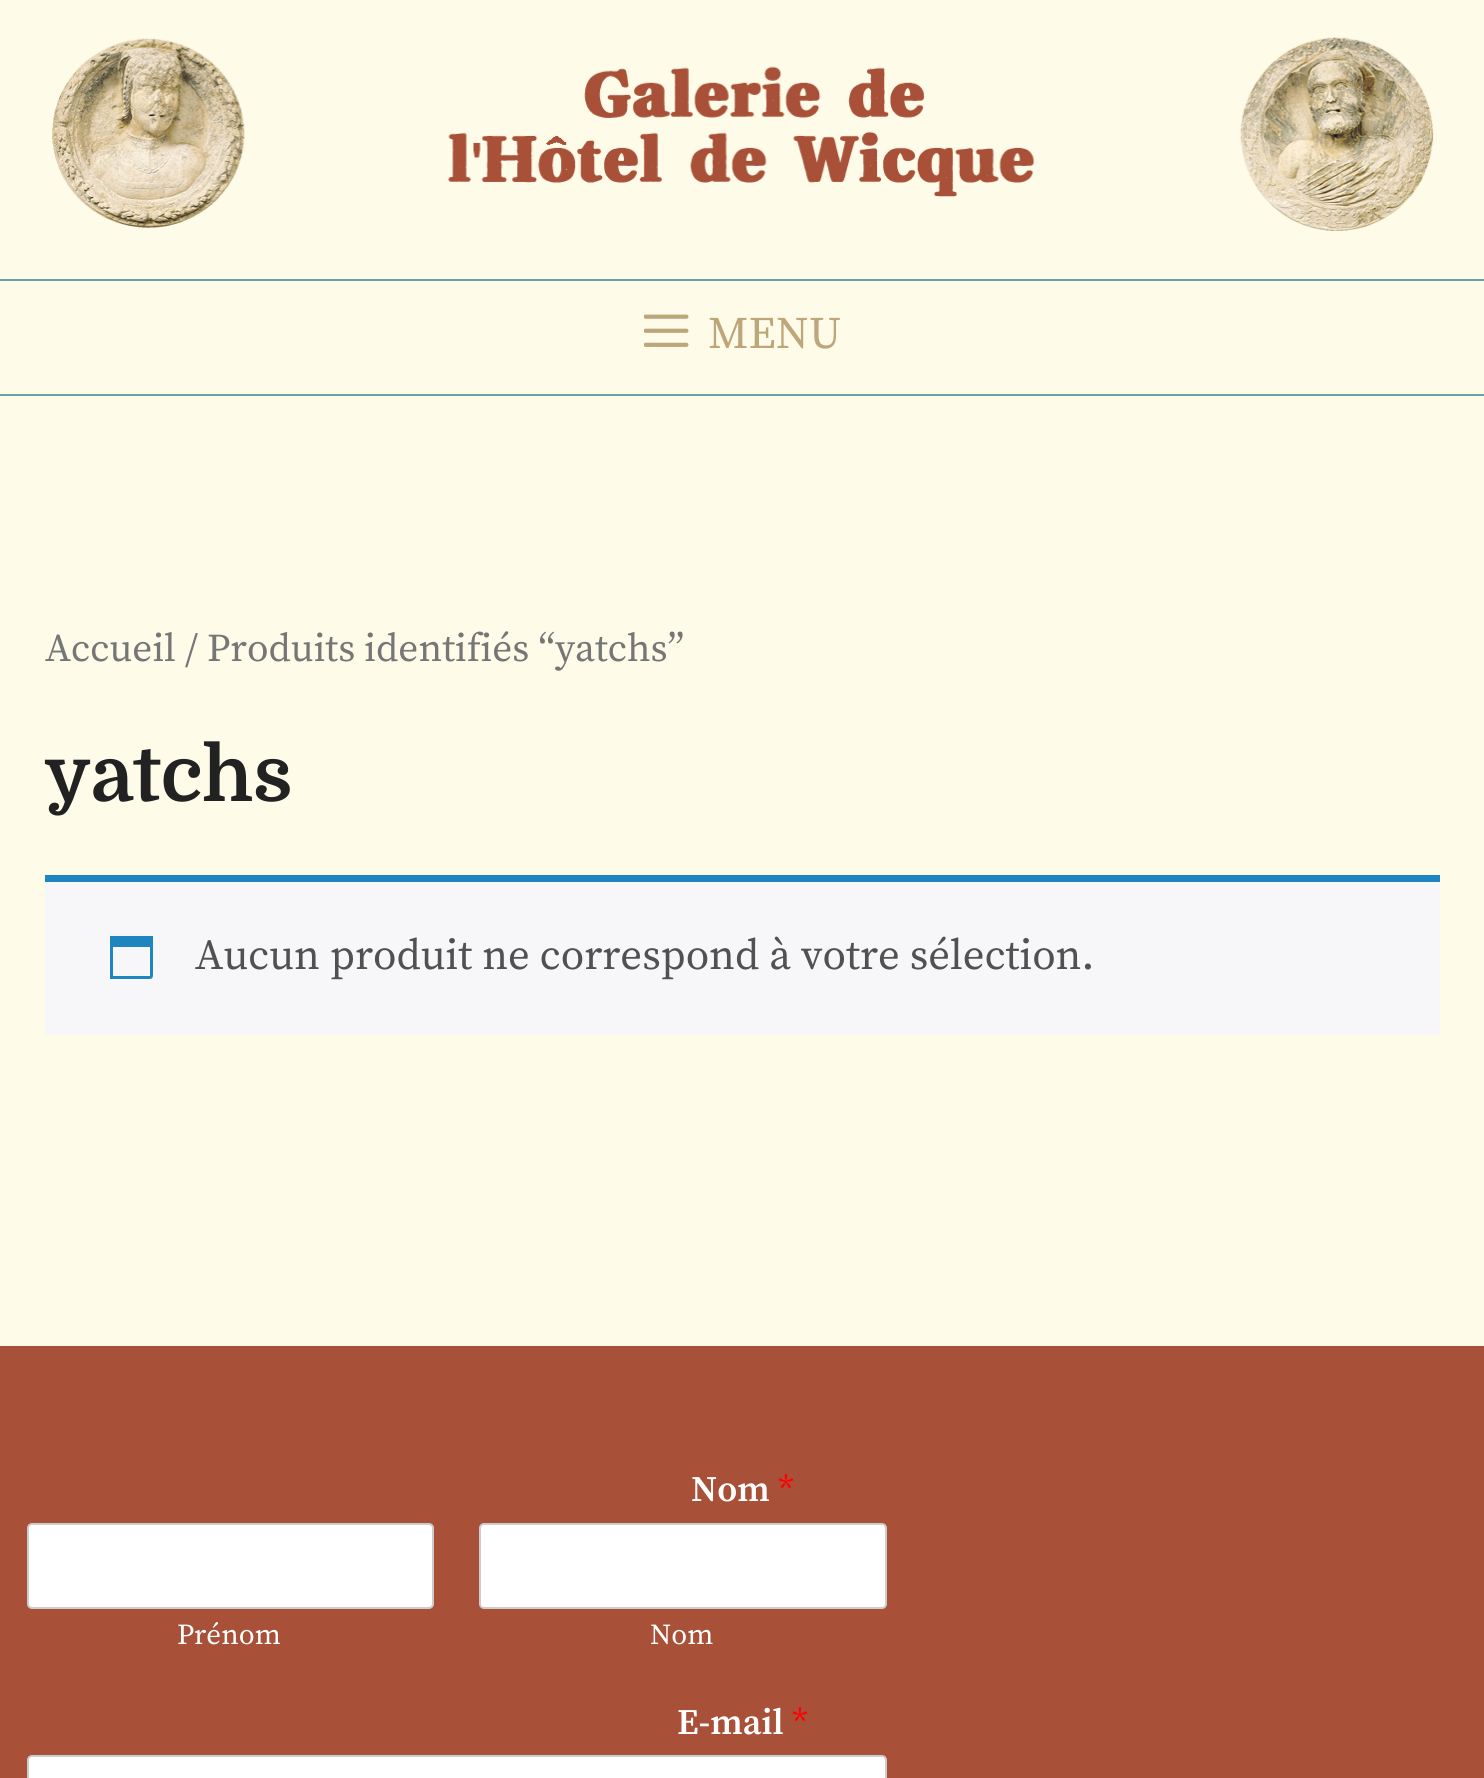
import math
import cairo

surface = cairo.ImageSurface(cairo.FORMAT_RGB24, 1484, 1778)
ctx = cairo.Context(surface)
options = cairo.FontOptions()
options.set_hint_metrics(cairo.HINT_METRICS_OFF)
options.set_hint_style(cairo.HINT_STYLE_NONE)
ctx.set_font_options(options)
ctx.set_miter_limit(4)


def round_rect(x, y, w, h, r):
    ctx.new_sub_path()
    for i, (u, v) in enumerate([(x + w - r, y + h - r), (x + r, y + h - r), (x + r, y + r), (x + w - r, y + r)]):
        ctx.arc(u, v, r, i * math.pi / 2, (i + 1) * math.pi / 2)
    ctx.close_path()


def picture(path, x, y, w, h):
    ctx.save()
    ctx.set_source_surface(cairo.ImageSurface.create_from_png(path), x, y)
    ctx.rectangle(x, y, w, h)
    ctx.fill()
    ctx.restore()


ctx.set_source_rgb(0.996, 0.984, 0.91)
ctx.paint()
picture("img1.png", 52, 37, 1382, 194)
ctx.set_source_rgb(0.427, 0.624, 0.667)
ctx.rectangle(0, 279, 1484, 2)
ctx.fill()
ctx.rectangle(0, 394, 1484, 2)
ctx.fill()
picture("img2.png", 644, 314, 45, 33)
ctx.select_font_face("Source Serif Pro")
ctx.set_font_size(45)
ctx.set_source_rgb(0.741, 0.655, 0.478)
ctx.move_to(708, 348)
ctx.show_text("MENU")
ctx.set_font_size(39.3)
ctx.set_source_rgb(0.463, 0.463, 0.463)
ctx.move_to(45, 661)
ctx.show_text("Accueil / Produits identifiés “yatchs”")
ctx.select_font_face("Domine", cairo.FONT_SLANT_NORMAL, cairo.FONT_WEIGHT_BOLD)
ctx.set_font_size(76.5)
ctx.set_source_rgb(0.133, 0.133, 0.133)
ctx.move_to(45, 801)
ctx.show_text("yatchs")
ctx.set_source_rgb(0.965, 0.961, 0.973)
ctx.rectangle(45, 882, 1395, 153)
ctx.fill()
ctx.set_source_rgb(0.118, 0.522, 0.745)
ctx.rectangle(45, 875, 1395, 7)
ctx.fill()
ctx.new_path()
ctx.move_to(150, 947)
ctx.line_to(113, 947)
ctx.line_to(113, 976)
ctx.line_to(150, 976)
ctx.close_path()
ctx.move_to(153, 936)
ctx.line_to(153, 969)
ctx.curve_to(153, 980, 154, 979, 143, 979)
ctx.line_to(110, 979)
ctx.line_to(110, 936)
ctx.close_path()
ctx.fill()
ctx.select_font_face("Source Serif Pro")
ctx.set_font_size(42.75)
ctx.set_source_rgb(0.318, 0.318, 0.318)
ctx.move_to(195, 969)
ctx.show_text("Aucun produit ne correspond à votre sélection.")
ctx.set_source_rgb(0.659, 0.314, 0.22)
ctx.rectangle(0, 1346, 1484, 432)
ctx.fill()
ctx.select_font_face("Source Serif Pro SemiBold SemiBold")
ctx.set_font_size(36)
ctx.set_source_rgb(1, 1, 1)
ctx.move_to(691, 1501)
ctx.show_text("Nom")
ctx.select_font_face("Source Serif Pro")
ctx.set_source_rgb(1, 0, 0)
ctx.move_to(778, 1501)
ctx.show_text("*")
ctx.set_source_rgb(1, 1, 1)
round_rect(28, 1524, 405, 84, 4)
ctx.fill_preserve()
ctx.set_source_rgb(0.8, 0.8, 0.8)
ctx.stroke()
ctx.set_font_size(29)
ctx.set_source_rgb(1, 1, 1)
ctx.move_to(177, 1644)
ctx.show_text("Prénom")
round_rect(480, 1524, 406, 84, 4)
ctx.fill_preserve()
ctx.set_source_rgb(0.8, 0.8, 0.8)
ctx.stroke()
ctx.set_source_rgb(1, 1, 1)
ctx.move_to(650, 1644)
ctx.show_text("Nom")
ctx.select_font_face("Source Serif Pro SemiBold SemiBold")
ctx.set_font_size(36)
ctx.move_to(677, 1734)
ctx.show_text("E-mail")
ctx.select_font_face("Source Serif Pro")
ctx.set_source_rgb(1, 0, 0)
ctx.move_to(792, 1734)
ctx.show_text("*")
ctx.set_source_rgb(1, 1, 1)
round_rect(28, 1756, 858, 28, 4)
ctx.fill_preserve()
ctx.set_source_rgb(0.8, 0.8, 0.8)
ctx.stroke()
surface.write_to_png("page.png")
